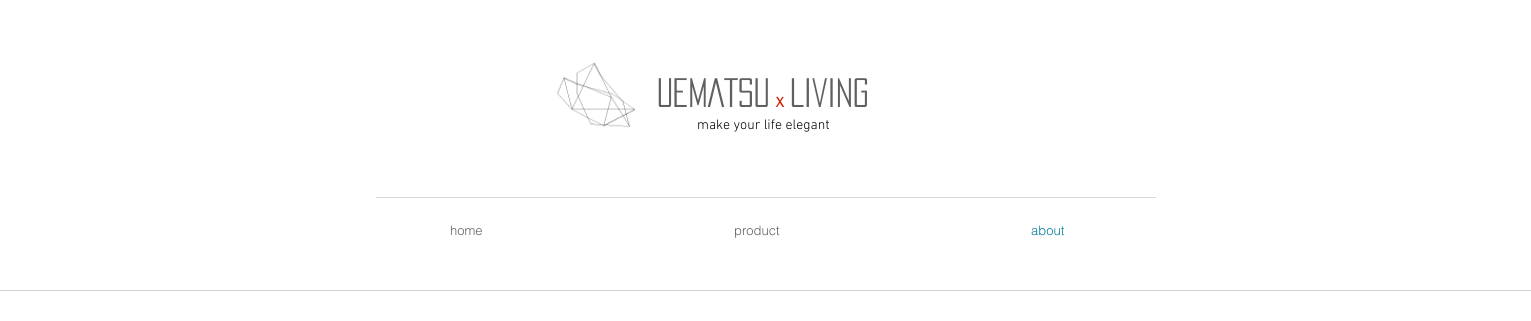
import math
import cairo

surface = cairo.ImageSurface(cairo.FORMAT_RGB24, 1531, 321)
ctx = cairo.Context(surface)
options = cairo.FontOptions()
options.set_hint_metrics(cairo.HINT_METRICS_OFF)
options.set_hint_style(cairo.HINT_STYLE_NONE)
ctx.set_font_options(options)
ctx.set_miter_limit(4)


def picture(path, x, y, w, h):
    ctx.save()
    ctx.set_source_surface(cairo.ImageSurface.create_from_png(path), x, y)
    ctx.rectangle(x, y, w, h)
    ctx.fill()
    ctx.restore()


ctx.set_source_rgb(1, 1, 1)
ctx.paint()
picture("img1.png", 557, 62, 78, 66)
ctx.select_font_face("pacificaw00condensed")
ctx.set_font_size(36)
ctx.set_source_rgb(0.376, 0.376, 0.376)
ctx.move_to(657, 107)
ctx.show_text("UEMATSU")
ctx.select_font_face("WenQuanYi Zen Hei Medium")
ctx.set_font_size(20)
ctx.set_source_rgb(0.827, 0.137, 0)
ctx.move_to(770, 107)
ctx.show_text("ｘ")
ctx.select_font_face("pacificaw00condensed")
ctx.set_font_size(36)
ctx.set_source_rgb(0.376, 0.376, 0.376)
ctx.move_to(790, 107)
ctx.show_text("LIVING")
ctx.select_font_face("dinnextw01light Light")
ctx.set_font_size(14)
ctx.set_source_rgb(0, 0, 0)
ctx.move_to(697, 129)
ctx.show_text("make your life elegant")
ctx.set_source_rgb(0.847, 0.847, 0.847)
ctx.rectangle(376, 197, 780, 1)
ctx.fill()
ctx.select_font_face("helvetica Light")
ctx.set_font_size(13)
ctx.set_source_rgb(0.376, 0.376, 0.376)
ctx.move_to(450, 235)
ctx.show_text("home")
ctx.move_to(734, 235)
ctx.show_text("product")
ctx.set_source_rgb(0, 0.482, 0.604)
ctx.move_to(1031, 235)
ctx.show_text("about")
ctx.set_source_rgb(0.812, 0.812, 0.812)
ctx.rectangle(0, 290, 1531, 1)
ctx.fill()
surface.write_to_png("page.png")
